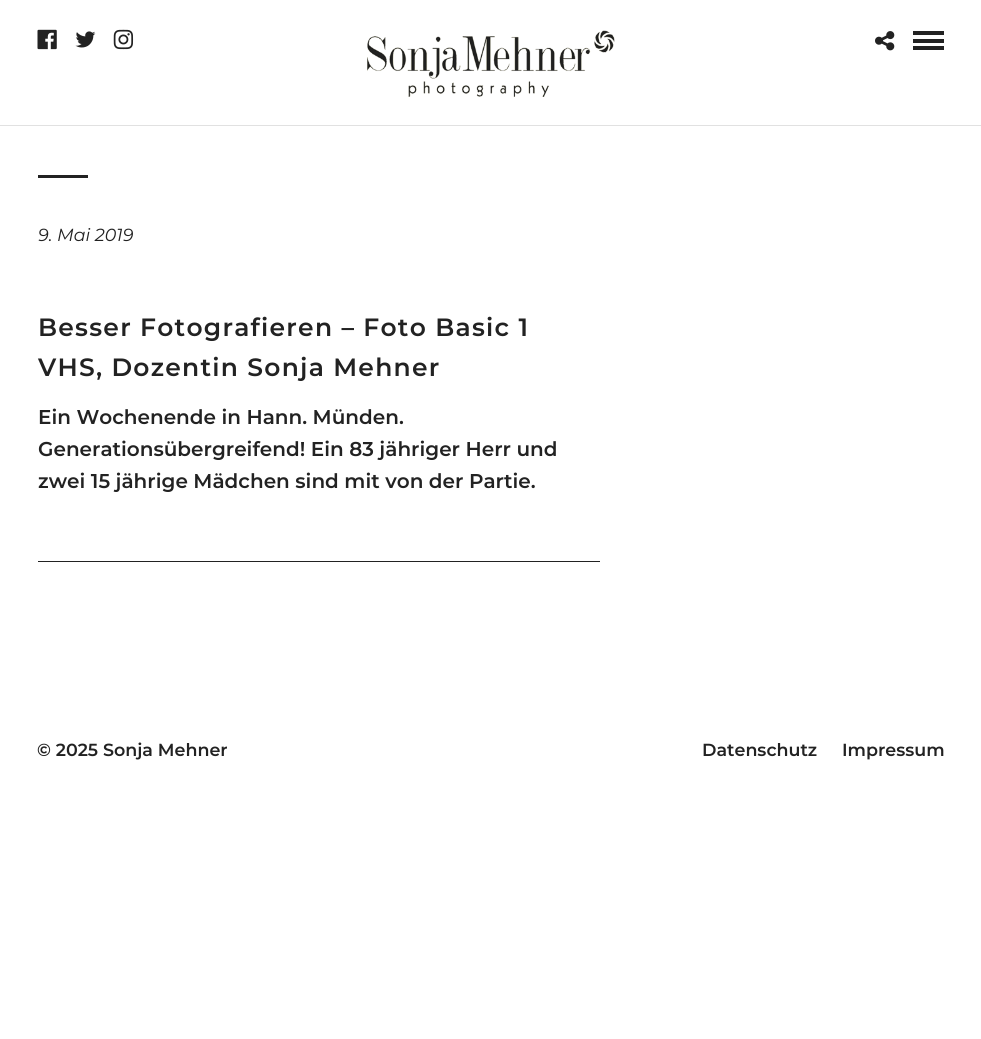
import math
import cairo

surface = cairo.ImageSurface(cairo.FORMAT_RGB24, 981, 1039)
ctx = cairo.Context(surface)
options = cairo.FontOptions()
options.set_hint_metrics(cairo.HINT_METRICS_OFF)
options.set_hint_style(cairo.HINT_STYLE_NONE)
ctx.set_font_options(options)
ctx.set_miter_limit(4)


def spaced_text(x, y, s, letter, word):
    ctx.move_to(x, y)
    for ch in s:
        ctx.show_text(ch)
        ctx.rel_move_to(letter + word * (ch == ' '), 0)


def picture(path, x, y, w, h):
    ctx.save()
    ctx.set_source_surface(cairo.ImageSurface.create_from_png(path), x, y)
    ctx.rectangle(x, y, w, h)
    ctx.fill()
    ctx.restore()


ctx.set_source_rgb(1, 1, 1)
ctx.paint()
ctx.set_source_rgb(0.882, 0.882, 0.882)
ctx.rectangle(0, 125, 981, 1)
ctx.fill()
picture("img1.png", 37, 29, 20, 21)
picture("img2.png", 75, 31, 21, 17)
picture("img3.png", 113, 29, 21, 21)
picture("img4.png", 367, 30, 248, 67)
picture("img5.png", 875, 31, 20, 20)
ctx.set_source_rgb(0.133, 0.133, 0.133)
ctx.rectangle(913, 31, 31, 4)
ctx.fill()
ctx.rectangle(913, 39, 31, 4)
ctx.fill()
ctx.rectangle(913, 46, 31, 4)
ctx.fill()
ctx.rectangle(38, 175, 50, 3)
ctx.fill()
ctx.select_font_face("Montserrat Thin", cairo.FONT_SLANT_ITALIC)
ctx.set_font_size(17.5)
ctx.move_to(38, 241)
ctx.show_text("9. Mai 2019")
ctx.select_font_face("Montserrat SemiBold")
ctx.set_font_size(25)
spaced_text(38, 336, "Besser Fotografieren – Foto Basic 1", 1.25, 0)
spaced_text(38, 376, "VHS, Dozentin Sonja Mehner", 1.25, 0)
ctx.set_font_size(20)
ctx.move_to(38, 424)
ctx.show_text("Ein Wochenende in Hann. Münden.")
ctx.move_to(38, 456)
ctx.show_text("Generationsübergreifend! Ein 83 jähriger Herr und")
ctx.move_to(38, 488)
ctx.show_text("zwei 15 jährige Mädchen sind mit von der Partie.")
ctx.rectangle(38, 561, 562, 1)
ctx.fill()
ctx.set_font_size(17.5)
ctx.move_to(37, 756)
ctx.show_text("© 2025 Sonja Mehner")
ctx.move_to(702, 756)
ctx.show_text("Datenschutz")
ctx.move_to(842, 756)
ctx.show_text("Impressum")
surface.write_to_png("page.png")
